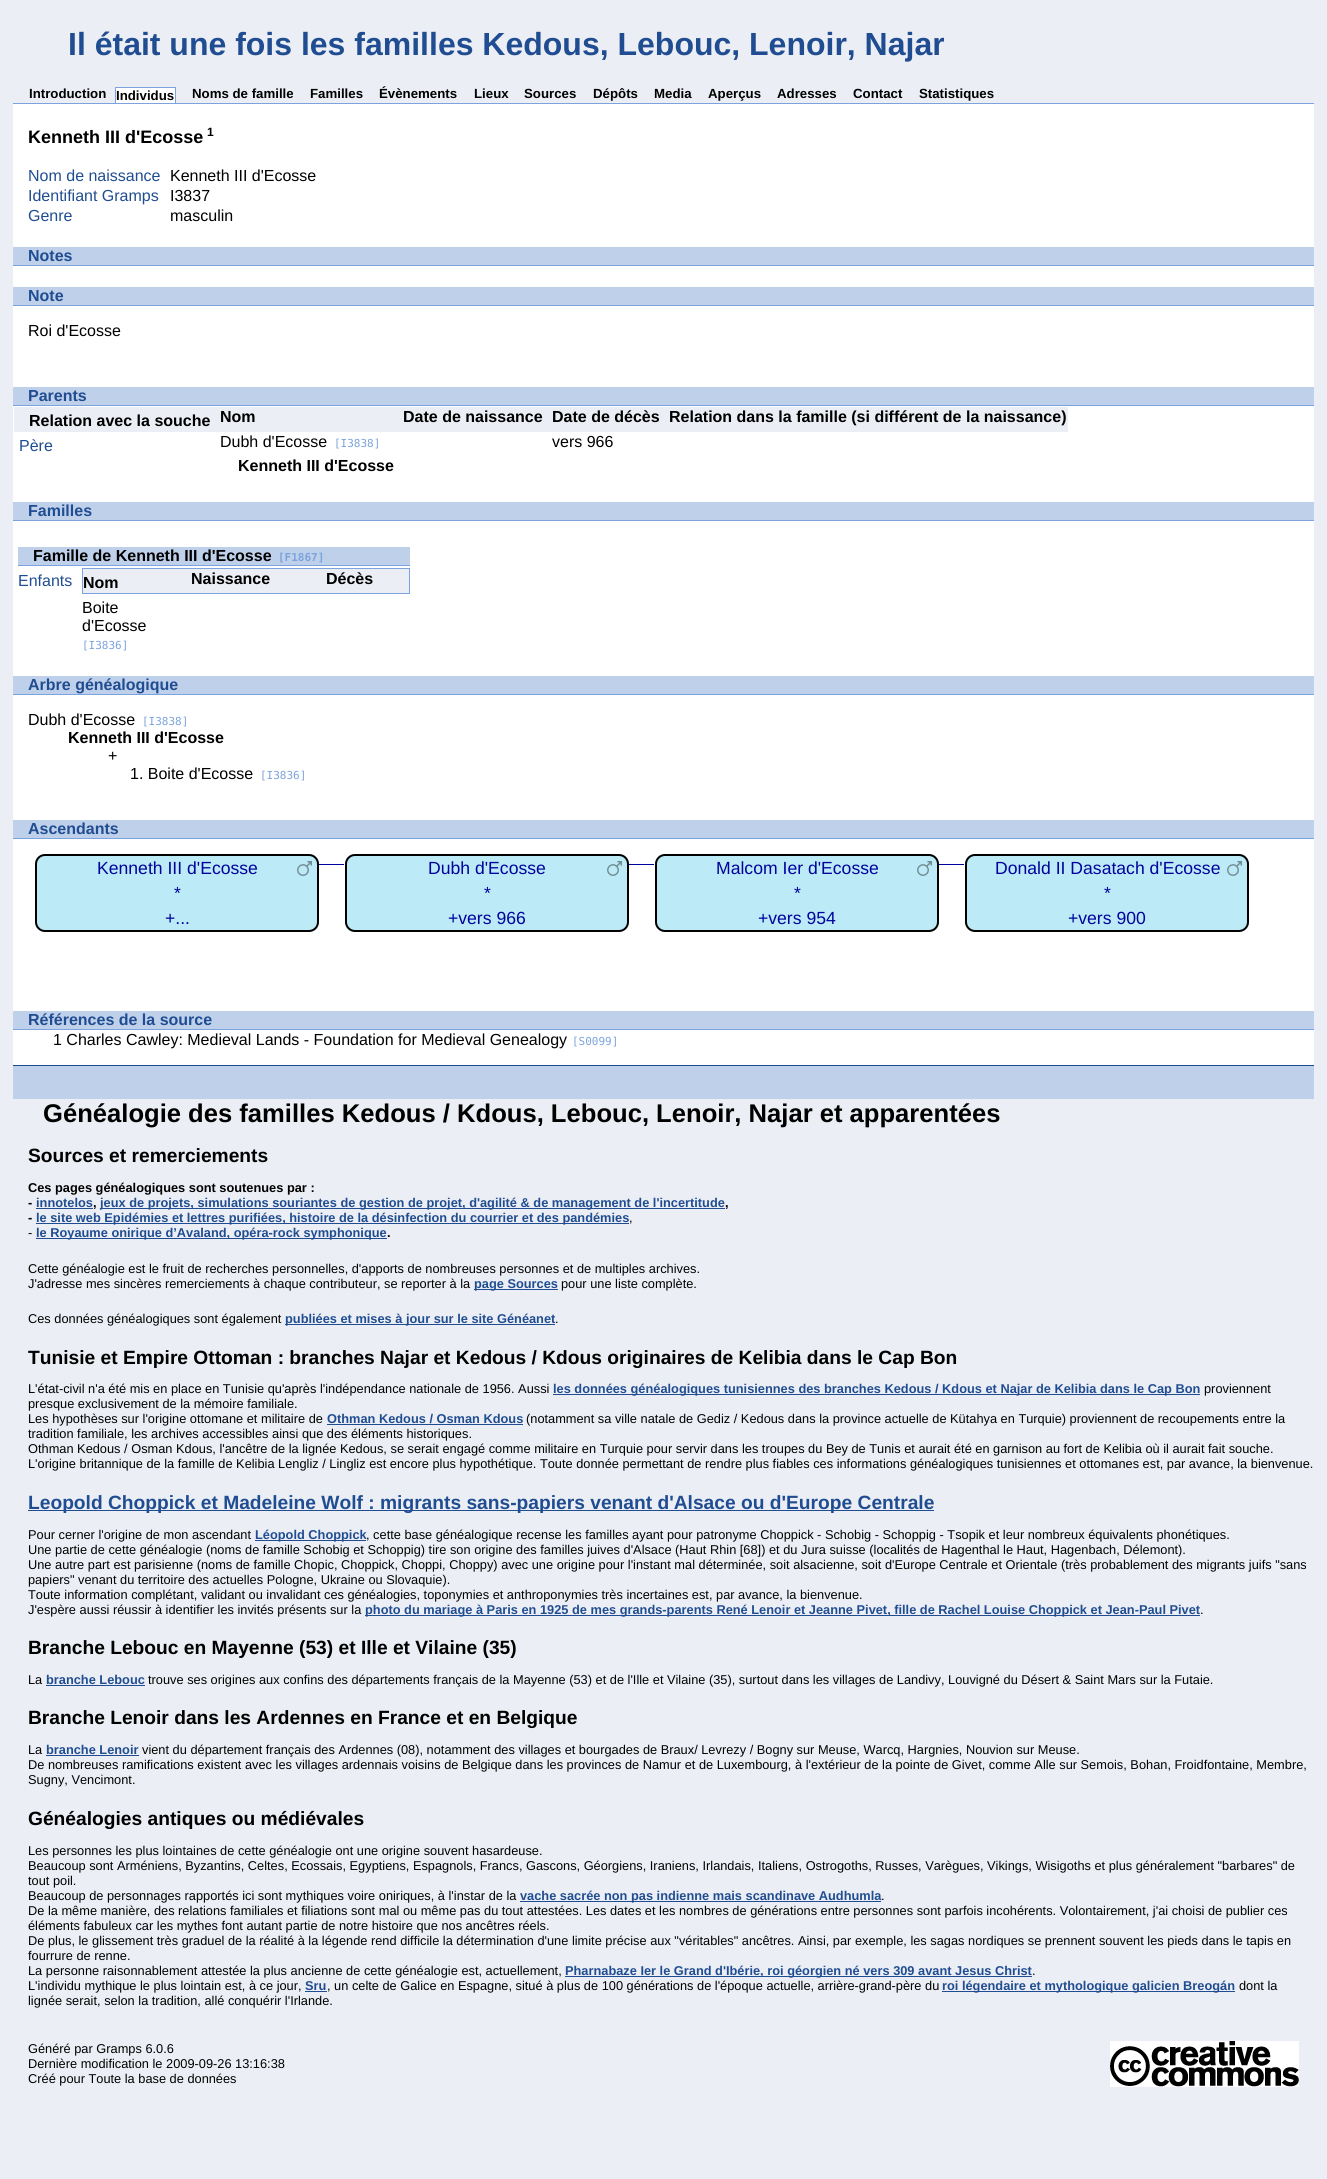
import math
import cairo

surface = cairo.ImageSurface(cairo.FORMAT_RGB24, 1327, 2179)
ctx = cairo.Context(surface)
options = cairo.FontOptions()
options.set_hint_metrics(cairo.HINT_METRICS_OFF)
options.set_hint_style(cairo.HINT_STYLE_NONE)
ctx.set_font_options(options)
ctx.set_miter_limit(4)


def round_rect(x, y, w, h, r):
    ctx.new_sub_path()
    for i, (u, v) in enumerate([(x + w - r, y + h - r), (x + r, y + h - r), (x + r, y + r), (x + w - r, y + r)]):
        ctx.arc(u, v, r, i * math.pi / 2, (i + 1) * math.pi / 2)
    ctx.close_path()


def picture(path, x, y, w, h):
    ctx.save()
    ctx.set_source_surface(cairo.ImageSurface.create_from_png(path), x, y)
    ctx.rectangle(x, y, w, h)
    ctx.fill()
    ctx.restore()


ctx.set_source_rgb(0.918, 0.933, 0.957)
ctx.paint()
ctx.select_font_face("Liberation Sans", cairo.FONT_SLANT_NORMAL, cairo.FONT_WEIGHT_BOLD)
ctx.set_font_size(32)
ctx.set_source_rgb(0.125, 0.302, 0.569)
ctx.move_to(68, 55)
ctx.show_text("Il était une fois les familles Kedous, Lebouc, Lenoir, Najar")
ctx.set_font_size(13.25)
ctx.set_source_rgb(0, 0, 0)
ctx.move_to(29, 98)
ctx.show_text("Introduction")
ctx.set_source_rgb(1, 1, 1)
ctx.rectangle(116, 88, 59, 15)
ctx.fill()
ctx.set_source_rgb(0.486, 0.639, 0.867)
ctx.rectangle(115, 87, 61, 1)
ctx.fill()
ctx.rectangle(175, 87, 1, 16)
ctx.fill()
ctx.rectangle(115, 87, 1, 16)
ctx.fill()
ctx.set_source_rgb(0, 0, 0)
ctx.move_to(116, 100)
ctx.show_text("Individus")
ctx.move_to(192, 98)
ctx.show_text("Noms de famille")
ctx.move_to(310, 98)
ctx.show_text("Familles")
ctx.move_to(379, 98)
ctx.show_text("Évènements")
ctx.move_to(474, 98)
ctx.show_text("Lieux")
ctx.move_to(524, 98)
ctx.show_text("Sources")
ctx.move_to(593, 98)
ctx.show_text("Dépôts")
ctx.move_to(654, 98)
ctx.show_text("Media")
ctx.move_to(708, 98)
ctx.show_text("Aperçus")
ctx.move_to(777, 98)
ctx.show_text("Adresses")
ctx.move_to(853, 98)
ctx.show_text("Contact")
ctx.move_to(919, 98)
ctx.show_text("Statistiques")
ctx.set_source_rgb(1, 1, 1)
ctx.rectangle(13, 104, 1301, 961)
ctx.fill()
ctx.set_source_rgb(0.486, 0.639, 0.867)
ctx.rectangle(13, 103, 1301, 1)
ctx.fill()
ctx.set_font_size(18)
ctx.set_source_rgb(0, 0, 0)
ctx.move_to(28, 143)
ctx.show_text("Kenneth III d'Ecosse")
ctx.set_font_size(12)
ctx.move_to(207, 136)
ctx.show_text("1")
ctx.select_font_face("Liberation Sans")
ctx.set_font_size(16)
ctx.set_source_rgb(0.125, 0.302, 0.569)
ctx.move_to(28, 181)
ctx.show_text("Nom de naissance")
ctx.set_source_rgb(0, 0, 0)
ctx.move_to(170, 181)
ctx.show_text("Kenneth III d'Ecosse")
ctx.set_source_rgb(0.125, 0.302, 0.569)
ctx.move_to(28, 201)
ctx.show_text("Identifiant Gramps")
ctx.set_source_rgb(0, 0, 0)
ctx.move_to(170, 201)
ctx.show_text("I3837")
ctx.set_source_rgb(0.125, 0.302, 0.569)
ctx.move_to(28, 221)
ctx.show_text("Genre")
ctx.set_source_rgb(0, 0, 0)
ctx.move_to(170, 221)
ctx.show_text("masculin")
ctx.set_source_rgb(0.749, 0.816, 0.918)
ctx.rectangle(13, 247, 1301, 18)
ctx.fill()
ctx.set_source_rgb(0.486, 0.639, 0.867)
ctx.rectangle(13, 265, 1301, 1)
ctx.fill()
ctx.select_font_face("Liberation Sans", cairo.FONT_SLANT_NORMAL, cairo.FONT_WEIGHT_BOLD)
ctx.set_source_rgb(0.125, 0.302, 0.569)
ctx.move_to(28, 261)
ctx.show_text("Notes")
ctx.set_source_rgb(0.749, 0.816, 0.918)
ctx.rectangle(13, 287, 1301, 18)
ctx.fill()
ctx.set_source_rgb(0.486, 0.639, 0.867)
ctx.rectangle(13, 305, 1301, 1)
ctx.fill()
ctx.set_source_rgb(0.125, 0.302, 0.569)
ctx.move_to(28, 301)
ctx.show_text("Note")
ctx.select_font_face("Liberation Sans")
ctx.set_source_rgb(0, 0, 0)
ctx.move_to(28, 336)
ctx.show_text("Roi d'Ecosse")
ctx.set_source_rgb(0.749, 0.816, 0.918)
ctx.rectangle(13, 387, 1301, 18)
ctx.fill()
ctx.set_source_rgb(0.486, 0.639, 0.867)
ctx.rectangle(13, 405, 1301, 1)
ctx.fill()
ctx.select_font_face("Liberation Sans", cairo.FONT_SLANT_NORMAL, cairo.FONT_WEIGHT_BOLD)
ctx.set_source_rgb(0.125, 0.302, 0.569)
ctx.move_to(28, 401)
ctx.show_text("Parents")
ctx.set_source_rgb(0.918, 0.933, 0.957)
ctx.rectangle(14, 407, 1054, 25)
ctx.fill()
ctx.set_source_rgb(0, 0, 0)
ctx.move_to(29, 426)
ctx.show_text("Relation avec la souche")
ctx.move_to(220, 422)
ctx.show_text("Nom")
ctx.move_to(403, 422)
ctx.show_text("Date de naissance")
ctx.move_to(552, 422)
ctx.show_text("Date de décès")
ctx.move_to(669, 422)
ctx.show_text("Relation dans la famille (si différent de la naissance)")
ctx.select_font_face("Liberation Sans")
ctx.set_source_rgb(0.125, 0.302, 0.569)
ctx.move_to(19, 451)
ctx.show_text("Père")
ctx.set_source_rgb(0, 0, 0)
ctx.move_to(220, 447)
ctx.show_text("Dubh d'Ecosse")
ctx.select_font_face("DejaVu Sans Mono")
ctx.set_font_size(11)
ctx.set_source_rgb(0.486, 0.639, 0.867)
ctx.move_to(334, 447)
ctx.show_text("[I3838]")
ctx.select_font_face("Liberation Sans")
ctx.set_font_size(16)
ctx.set_source_rgb(0, 0, 0)
ctx.move_to(552, 447)
ctx.show_text("vers 966")
ctx.select_font_face("Liberation Sans", cairo.FONT_SLANT_NORMAL, cairo.FONT_WEIGHT_BOLD)
ctx.move_to(238, 471)
ctx.show_text("Kenneth III d'Ecosse")
ctx.set_source_rgb(0.749, 0.816, 0.918)
ctx.rectangle(13, 502, 1301, 18)
ctx.fill()
ctx.set_source_rgb(0.486, 0.639, 0.867)
ctx.rectangle(13, 520, 1301, 1)
ctx.fill()
ctx.set_source_rgb(0.125, 0.302, 0.569)
ctx.move_to(28, 516)
ctx.show_text("Familles")
ctx.set_source_rgb(0.749, 0.816, 0.918)
ctx.rectangle(18, 547, 392, 18)
ctx.fill()
ctx.set_source_rgb(0.486, 0.639, 0.867)
ctx.rectangle(18, 565, 392, 1)
ctx.fill()
ctx.set_source_rgb(0, 0, 0)
ctx.move_to(33, 561)
ctx.show_text("Famille de Kenneth III d'Ecosse")
ctx.select_font_face("DejaVu Sans Mono", cairo.FONT_SLANT_NORMAL, cairo.FONT_WEIGHT_BOLD)
ctx.set_font_size(11)
ctx.set_source_rgb(0.486, 0.639, 0.867)
ctx.move_to(278, 561)
ctx.show_text("[F1867]")
ctx.select_font_face("Liberation Sans")
ctx.set_font_size(16)
ctx.set_source_rgb(0.125, 0.302, 0.569)
ctx.move_to(18, 586)
ctx.show_text("Enfants")
ctx.set_source_rgb(0.918, 0.933, 0.957)
ctx.rectangle(83, 569, 326, 24)
ctx.fill()
ctx.set_source_rgb(0.486, 0.639, 0.867)
ctx.rectangle(82, 568, 328, 1)
ctx.fill()
ctx.rectangle(409, 568, 1, 26)
ctx.fill()
ctx.rectangle(82, 593, 328, 1)
ctx.fill()
ctx.rectangle(82, 568, 1, 26)
ctx.fill()
ctx.select_font_face("Liberation Sans", cairo.FONT_SLANT_NORMAL, cairo.FONT_WEIGHT_BOLD)
ctx.set_source_rgb(0, 0, 0)
ctx.move_to(83, 588)
ctx.show_text("Nom")
ctx.move_to(191, 584)
ctx.show_text("Naissance")
ctx.move_to(326, 584)
ctx.show_text("Décès")
ctx.select_font_face("Liberation Sans")
ctx.move_to(82, 613)
ctx.show_text("Boite")
ctx.move_to(82, 631)
ctx.show_text("d'Ecosse")
ctx.select_font_face("DejaVu Sans Mono")
ctx.set_font_size(11)
ctx.set_source_rgb(0.486, 0.639, 0.867)
ctx.move_to(82, 649)
ctx.show_text("[I3836]")
ctx.set_source_rgb(0.749, 0.816, 0.918)
ctx.rectangle(13, 676, 1301, 18)
ctx.fill()
ctx.set_source_rgb(0.486, 0.639, 0.867)
ctx.rectangle(13, 694, 1301, 1)
ctx.fill()
ctx.select_font_face("Liberation Sans", cairo.FONT_SLANT_NORMAL, cairo.FONT_WEIGHT_BOLD)
ctx.set_font_size(16)
ctx.set_source_rgb(0.125, 0.302, 0.569)
ctx.move_to(28, 690)
ctx.show_text("Arbre généalogique")
ctx.select_font_face("Liberation Sans")
ctx.set_source_rgb(0, 0, 0)
ctx.move_to(28, 725)
ctx.show_text("Dubh d'Ecosse")
ctx.select_font_face("DejaVu Sans Mono")
ctx.set_font_size(11)
ctx.set_source_rgb(0.486, 0.639, 0.867)
ctx.move_to(142, 725)
ctx.show_text("[I3838]")
ctx.select_font_face("Liberation Sans", cairo.FONT_SLANT_NORMAL, cairo.FONT_WEIGHT_BOLD)
ctx.set_font_size(16)
ctx.set_source_rgb(0, 0, 0)
ctx.move_to(68, 743)
ctx.show_text("Kenneth III d'Ecosse")
ctx.select_font_face("Liberation Sans")
ctx.move_to(108, 761)
ctx.show_text("+")
ctx.move_to(130, 779)
ctx.show_text("1. Boite d'Ecosse")
ctx.select_font_face("DejaVu Sans Mono")
ctx.set_font_size(11)
ctx.set_source_rgb(0.486, 0.639, 0.867)
ctx.move_to(260, 779)
ctx.show_text("[I3836]")
ctx.set_source_rgb(0.749, 0.816, 0.918)
ctx.rectangle(13, 820, 1301, 18)
ctx.fill()
ctx.set_source_rgb(0.486, 0.639, 0.867)
ctx.rectangle(13, 838, 1301, 1)
ctx.fill()
ctx.select_font_face("Liberation Sans", cairo.FONT_SLANT_NORMAL, cairo.FONT_WEIGHT_BOLD)
ctx.set_font_size(16)
ctx.set_source_rgb(0.125, 0.302, 0.569)
ctx.move_to(28, 834)
ctx.show_text("Ascendants")
ctx.set_source_rgb(0, 0.008, 0.616)
ctx.rectangle(314, 864, 30, 1)
ctx.fill()
ctx.set_source_rgb(0.737, 0.918, 0.965)
round_rect(35, 854, 284, 78, 10)
ctx.fill()
picture("img1.png", 297, 861, 15, 15)
round_rect(36, 855, 282, 76, 9)
ctx.set_source_rgb(0, 0, 0)
ctx.stroke()
ctx.select_font_face("Liberation Sans")
ctx.set_font_size(17.6)
ctx.set_source_rgb(0, 0.008, 0.616)
ctx.move_to(97, 874)
ctx.show_text("Kenneth III d'Ecosse")
ctx.move_to(174, 899)
ctx.show_text("*")
ctx.move_to(165, 924)
ctx.show_text("+...")
ctx.rectangle(624, 864, 30, 1)
ctx.fill()
ctx.set_source_rgb(0.737, 0.918, 0.965)
round_rect(345, 854, 284, 78, 10)
ctx.fill()
picture("img1.png", 607, 861, 15, 15)
round_rect(346, 855, 282, 76, 9)
ctx.set_source_rgb(0, 0, 0)
ctx.stroke()
ctx.set_source_rgb(0, 0.008, 0.616)
ctx.move_to(428, 874)
ctx.show_text("Dubh d'Ecosse")
ctx.move_to(484, 899)
ctx.show_text("*")
ctx.move_to(448, 924)
ctx.show_text("+vers 966")
ctx.rectangle(934, 864, 30, 1)
ctx.fill()
ctx.set_source_rgb(0.737, 0.918, 0.965)
round_rect(655, 854, 284, 78, 10)
ctx.fill()
picture("img1.png", 917, 861, 15, 15)
round_rect(656, 855, 282, 76, 9)
ctx.set_source_rgb(0, 0, 0)
ctx.stroke()
ctx.set_source_rgb(0, 0.008, 0.616)
ctx.move_to(716, 874)
ctx.show_text("Malcom Ier d'Ecosse")
ctx.move_to(794, 899)
ctx.show_text("*")
ctx.move_to(758, 924)
ctx.show_text("+vers 954")
ctx.set_source_rgb(0.737, 0.918, 0.965)
round_rect(965, 854, 284, 78, 10)
ctx.fill()
picture("img1.png", 1227, 861, 15, 15)
round_rect(966, 855, 282, 76, 9)
ctx.set_source_rgb(0, 0, 0)
ctx.stroke()
ctx.set_source_rgb(0, 0.008, 0.616)
ctx.move_to(995, 874)
ctx.show_text("Donald II Dasatach d'Ecosse")
ctx.move_to(1104, 899)
ctx.show_text("*")
ctx.move_to(1068, 924)
ctx.show_text("+vers 900")
ctx.set_source_rgb(0.749, 0.816, 0.918)
ctx.rectangle(13, 1011, 1301, 18)
ctx.fill()
ctx.set_source_rgb(0.486, 0.639, 0.867)
ctx.rectangle(13, 1029, 1301, 1)
ctx.fill()
ctx.select_font_face("Liberation Sans", cairo.FONT_SLANT_NORMAL, cairo.FONT_WEIGHT_BOLD)
ctx.set_font_size(16)
ctx.set_source_rgb(0.125, 0.302, 0.569)
ctx.move_to(28, 1025)
ctx.show_text("Références de la source")
ctx.select_font_face("Liberation Sans")
ctx.set_source_rgb(0, 0, 0)
ctx.move_to(53, 1045)
ctx.show_text("1 Charles Cawley: Medieval Lands - Foundation for Medieval Genealogy")
ctx.select_font_face("DejaVu Sans Mono")
ctx.set_font_size(11)
ctx.set_source_rgb(0.486, 0.639, 0.867)
ctx.move_to(572, 1045)
ctx.show_text("[S0099]")
ctx.set_source_rgb(0.749, 0.816, 0.918)
ctx.rectangle(13, 1066, 1301, 33)
ctx.fill()
ctx.set_source_rgb(0.125, 0.302, 0.569)
ctx.rectangle(13, 1065, 1301, 1)
ctx.fill()
ctx.select_font_face("Liberation Sans", cairo.FONT_SLANT_NORMAL, cairo.FONT_WEIGHT_BOLD)
ctx.set_font_size(25.6)
ctx.set_source_rgb(0, 0, 0)
ctx.move_to(43, 1122)
ctx.show_text("Généalogie des familles Kedous / Kdous, Lebouc, Lenoir, Najar et apparentées")
ctx.set_font_size(19.2)
ctx.move_to(28, 1162)
ctx.show_text("Sources et remerciements")
ctx.set_font_size(12.8)
ctx.move_to(28, 1192)
ctx.show_text("Ces pages généalogiques sont soutenues par :")
ctx.move_to(28, 1207)
ctx.show_text("-")
ctx.set_source_rgb(0.125, 0.302, 0.569)
ctx.move_to(36, 1207)
ctx.show_text("innotelos")
ctx.rectangle(100, 1208, 625, 1)
ctx.fill()
ctx.move_to(100, 1207)
ctx.show_text("jeux de projets, simulations souriantes de gestion de projet, d'agilité & de management de l'incertitude")
ctx.set_source_rgb(0, 0, 0)
ctx.move_to(93, 1207)
ctx.show_text(",")
ctx.set_source_rgb(0.125, 0.302, 0.569)
ctx.rectangle(36, 1208, 57, 1)
ctx.fill()
ctx.set_source_rgb(0, 0, 0)
ctx.move_to(725, 1207)
ctx.show_text(",")
ctx.move_to(28, 1222)
ctx.show_text("-")
ctx.set_source_rgb(0.125, 0.302, 0.569)
ctx.rectangle(36, 1223, 593, 1)
ctx.fill()
ctx.move_to(36, 1222)
ctx.show_text("le site web Epidémies et lettres purifiées, histoire de la désinfection du courrier et des pandémies")
ctx.select_font_face("Liberation Sans")
ctx.set_source_rgb(0, 0, 0)
ctx.move_to(629, 1222)
ctx.show_text(",")
ctx.move_to(28, 1237)
ctx.show_text("-")
ctx.set_source_rgb(0.125, 0.302, 0.569)
ctx.rectangle(36, 1238, 351, 1)
ctx.fill()
ctx.select_font_face("Liberation Sans", cairo.FONT_SLANT_NORMAL, cairo.FONT_WEIGHT_BOLD)
ctx.move_to(36, 1237)
ctx.show_text("le Royaume onirique d’Avaland, opéra-rock symphonique")
ctx.set_source_rgb(0, 0, 0)
ctx.move_to(387, 1237)
ctx.show_text(".")
ctx.select_font_face("Liberation Sans")
ctx.move_to(28, 1273)
ctx.show_text("Cette généalogie est le fruit de recherches personnelles, d'apports de nombreuses personnes et de multiples archives.")
ctx.move_to(28, 1288)
ctx.show_text("J'adresse mes sincères remerciements à chaque contributeur, se reporter à la")
ctx.set_source_rgb(0.125, 0.302, 0.569)
ctx.rectangle(474, 1289, 84, 1)
ctx.fill()
ctx.select_font_face("Liberation Sans", cairo.FONT_SLANT_NORMAL, cairo.FONT_WEIGHT_BOLD)
ctx.move_to(474, 1288)
ctx.show_text("page Sources")
ctx.select_font_face("Liberation Sans")
ctx.set_source_rgb(0, 0, 0)
ctx.move_to(561, 1288)
ctx.show_text("pour une liste complète.")
ctx.move_to(28, 1323)
ctx.show_text("Ces données généalogiques sont également")
ctx.set_source_rgb(0.125, 0.302, 0.569)
ctx.rectangle(285, 1324, 270, 1)
ctx.fill()
ctx.select_font_face("Liberation Sans", cairo.FONT_SLANT_NORMAL, cairo.FONT_WEIGHT_BOLD)
ctx.move_to(285, 1323)
ctx.show_text("publiées et mises à jour sur le site Généanet")
ctx.select_font_face("Liberation Sans")
ctx.set_source_rgb(0, 0, 0)
ctx.move_to(555, 1323)
ctx.show_text(".")
ctx.select_font_face("Liberation Sans", cairo.FONT_SLANT_NORMAL, cairo.FONT_WEIGHT_BOLD)
ctx.set_font_size(19.2)
ctx.move_to(28, 1364)
ctx.show_text("Tunisie et Empire Ottoman : branches Najar et Kedous / Kdous originaires de Kelibia dans le Cap Bon")
ctx.select_font_face("Liberation Sans")
ctx.set_font_size(12.8)
ctx.move_to(28, 1393)
ctx.show_text("L'état-civil n'a été mis en place en Tunisie qu'après l'indépendance nationale de 1956. Aussi")
ctx.set_source_rgb(0.125, 0.302, 0.569)
ctx.rectangle(553, 1394, 647, 1)
ctx.fill()
ctx.select_font_face("Liberation Sans", cairo.FONT_SLANT_NORMAL, cairo.FONT_WEIGHT_BOLD)
ctx.move_to(553, 1393)
ctx.show_text("les données généalogiques tunisiennes des branches Kedous / Kdous et Najar de Kelibia dans le Cap Bon")
ctx.select_font_face("Liberation Sans")
ctx.set_source_rgb(0, 0, 0)
ctx.move_to(1204, 1393)
ctx.show_text("proviennent")
ctx.move_to(28, 1408)
ctx.show_text("presque exclusivement de la mémoire familiale.")
ctx.move_to(28, 1423)
ctx.show_text("Les hypothèses sur l'origine ottomane et militaire de")
ctx.select_font_face("Liberation Sans", cairo.FONT_SLANT_NORMAL, cairo.FONT_WEIGHT_BOLD)
ctx.set_source_rgb(0.125, 0.302, 0.569)
ctx.move_to(327, 1423)
ctx.show_text("Othman Kedous / Osman Kdous")
ctx.rectangle(327, 1424, 196, 1)
ctx.fill()
ctx.select_font_face("Liberation Sans")
ctx.set_source_rgb(0, 0, 0)
ctx.move_to(526, 1423)
ctx.show_text("(notamment sa ville natale de Gediz / Kedous dans la province actuelle de Kütahya en Turquie) proviennent de recoupements entre la")
ctx.move_to(28, 1438)
ctx.show_text("tradition familiale, les archives accessibles ainsi que des éléments historiques.")
ctx.move_to(28, 1453)
ctx.show_text("Othman Kedous / Osman Kdous, l'ancêtre de la lignée Kedous, se serait engagé comme militaire en Turquie pour servir dans les troupes du Bey de Tunis et aurait été en garnison au fort de Kelibia où il aurait fait souche.")
ctx.move_to(28, 1468)
ctx.show_text("L'origine britannique de la famille de Kelibia Lengliz / Lingliz est encore plus hypothétique. Toute donnée permettant de rendre plus fiables ces informations généalogiques tunisiennes et ottomanes est, par avance, la bienvenue.")
ctx.set_source_rgb(0.125, 0.302, 0.569)
ctx.rectangle(28, 1510, 906, 1)
ctx.fill()
ctx.select_font_face("Liberation Sans", cairo.FONT_SLANT_NORMAL, cairo.FONT_WEIGHT_BOLD)
ctx.set_font_size(19.2)
ctx.move_to(28, 1509)
ctx.show_text("Leopold Choppick et Madeleine Wolf : migrants sans-papiers venant d'Alsace ou d'Europe Centrale")
ctx.select_font_face("Liberation Sans")
ctx.set_font_size(12.8)
ctx.set_source_rgb(0, 0, 0)
ctx.move_to(28, 1539)
ctx.show_text("Pour cerner l'origine de mon ascendant")
ctx.set_source_rgb(0.125, 0.302, 0.569)
ctx.rectangle(255, 1540, 111, 1)
ctx.fill()
ctx.select_font_face("Liberation Sans", cairo.FONT_SLANT_NORMAL, cairo.FONT_WEIGHT_BOLD)
ctx.move_to(255, 1539)
ctx.show_text("Léopold Choppick")
ctx.select_font_face("Liberation Sans")
ctx.set_source_rgb(0, 0, 0)
ctx.move_to(366, 1539)
ctx.show_text(", cette base généalogique recense les familles ayant pour patronyme Choppick - Schobig - Schoppig - Tsopik et leur nombreux équivalents phonétiques.")
ctx.move_to(28, 1554)
ctx.show_text("Une partie de cette généalogie (noms de famille Schobig et Schoppig) tire son origine des familles juives d'Alsace (Haut Rhin [68]) et du Jura suisse (localités de Hagenthal le Haut, Hagenbach, Délemont).")
ctx.move_to(28, 1569)
ctx.show_text("Une autre part est parisienne (noms de famille Chopic, Choppick, Choppi, Choppy) avec une origine pour l'instant mal déterminée, soit alsacienne, soit d'Europe Centrale et Orientale (très probablement des migrants juifs \"sans")
ctx.move_to(28, 1584)
ctx.show_text("papiers\" venant du territoire des actuelles Pologne, Ukraine ou Slovaquie).")
ctx.move_to(28, 1599)
ctx.show_text("Toute information complétant, validant ou invalidant ces généalogies, toponymies et anthroponymies très incertaines est, par avance, la bienvenue.")
ctx.move_to(28, 1614)
ctx.show_text("J'espère aussi réussir à identifier les invités présents sur la")
ctx.set_source_rgb(0.125, 0.302, 0.569)
ctx.rectangle(365, 1615, 835, 1)
ctx.fill()
ctx.select_font_face("Liberation Sans", cairo.FONT_SLANT_NORMAL, cairo.FONT_WEIGHT_BOLD)
ctx.move_to(365, 1614)
ctx.show_text("photo du mariage à Paris en 1925 de mes grands-parents René Lenoir et Jeanne Pivet, fille de Rachel Louise Choppick et Jean-Paul Pivet")
ctx.select_font_face("Liberation Sans")
ctx.set_source_rgb(0, 0, 0)
ctx.move_to(1200, 1614)
ctx.show_text(".")
ctx.select_font_face("Liberation Sans", cairo.FONT_SLANT_NORMAL, cairo.FONT_WEIGHT_BOLD)
ctx.set_font_size(19.2)
ctx.move_to(28, 1654)
ctx.show_text("Branche Lebouc en Mayenne (53) et Ille et Vilaine (35)")
ctx.select_font_face("Liberation Sans")
ctx.set_font_size(12.8)
ctx.move_to(28, 1684)
ctx.show_text("La")
ctx.select_font_face("Liberation Sans", cairo.FONT_SLANT_NORMAL, cairo.FONT_WEIGHT_BOLD)
ctx.set_source_rgb(0.125, 0.302, 0.569)
ctx.move_to(46, 1684)
ctx.show_text("branche Lebouc")
ctx.rectangle(46, 1685, 99, 1)
ctx.fill()
ctx.select_font_face("Liberation Sans")
ctx.set_source_rgb(0, 0, 0)
ctx.move_to(148, 1684)
ctx.show_text("trouve ses origines aux confins des départements français de la Mayenne (53) et de l'Ille et Vilaine (35), surtout dans les villages de Landivy, Louvigné du Désert & Saint Mars sur la Futaie.")
ctx.select_font_face("Liberation Sans", cairo.FONT_SLANT_NORMAL, cairo.FONT_WEIGHT_BOLD)
ctx.set_font_size(19.2)
ctx.move_to(28, 1724)
ctx.show_text("Branche Lenoir dans les Ardennes en France et en Belgique")
ctx.select_font_face("Liberation Sans")
ctx.set_font_size(12.8)
ctx.move_to(28, 1754)
ctx.show_text("La")
ctx.select_font_face("Liberation Sans", cairo.FONT_SLANT_NORMAL, cairo.FONT_WEIGHT_BOLD)
ctx.set_source_rgb(0.125, 0.302, 0.569)
ctx.move_to(46, 1754)
ctx.show_text("branche Lenoir")
ctx.rectangle(46, 1755, 93, 1)
ctx.fill()
ctx.select_font_face("Liberation Sans")
ctx.set_source_rgb(0, 0, 0)
ctx.move_to(142, 1754)
ctx.show_text("vient du département français des Ardennes (08), notamment des villages et bourgades de Braux/ Levrezy / Bogny sur Meuse, Warcq, Hargnies, Nouvion sur Meuse.")
ctx.move_to(28, 1769)
ctx.show_text("De nombreuses ramifications existent avec les villages ardennais voisins de Belgique dans les provinces de Namur et de Luxembourg, à l'extérieur de la pointe de Givet, comme Alle sur Semois, Bohan, Froidfontaine, Membre,")
ctx.move_to(28, 1784)
ctx.show_text("Sugny, Vencimont.")
ctx.select_font_face("Liberation Sans", cairo.FONT_SLANT_NORMAL, cairo.FONT_WEIGHT_BOLD)
ctx.set_font_size(19.2)
ctx.move_to(28, 1825)
ctx.show_text("Généalogies antiques ou médiévales")
ctx.select_font_face("Liberation Sans")
ctx.set_font_size(12.8)
ctx.move_to(28, 1855)
ctx.show_text("Les personnes les plus lointaines de cette généalogie ont une origine souvent hasardeuse.")
ctx.move_to(28, 1870)
ctx.show_text("Beaucoup sont Arméniens, Byzantins, Celtes, Ecossais, Egyptiens, Espagnols, Francs, Gascons, Géorgiens, Iraniens, Irlandais, Italiens, Ostrogoths, Russes, Varègues, Vikings, Wisigoths et plus généralement \"barbares\" de")
ctx.move_to(28, 1885)
ctx.show_text("tout poil.")
ctx.move_to(28, 1900)
ctx.show_text("Beaucoup de personnages rapportés ici sont mythiques voire oniriques, à l'instar de la")
ctx.set_source_rgb(0.125, 0.302, 0.569)
ctx.rectangle(520, 1901, 361, 1)
ctx.fill()
ctx.select_font_face("Liberation Sans", cairo.FONT_SLANT_NORMAL, cairo.FONT_WEIGHT_BOLD)
ctx.move_to(520, 1900)
ctx.show_text("vache sacrée non pas indienne mais scandinave Audhumla")
ctx.select_font_face("Liberation Sans")
ctx.set_source_rgb(0, 0, 0)
ctx.move_to(881, 1900)
ctx.show_text(".")
ctx.move_to(28, 1915)
ctx.show_text("De la même manière, des relations familiales et filiations sont mal ou même pas du tout attestées. Les dates et les nombres de générations entre personnes sont parfois incohérents. Volontairement, j'ai choisi de publier ces")
ctx.move_to(28, 1930)
ctx.show_text("éléments fabuleux car les mythes font autant partie de notre histoire que nos ancêtres réels.")
ctx.move_to(28, 1945)
ctx.show_text("De plus, le glissement très graduel de la réalité à la légende rend difficile la détermination d'une limite précise aux \"véritables\" ancêtres. Ainsi, par exemple, les sagas nordiques se prennent souvent les pieds dans le tapis en")
ctx.move_to(28, 1960)
ctx.show_text("fourrure de renne.")
ctx.move_to(28, 1975)
ctx.show_text("La personne raisonnablement attestée la plus ancienne de cette généalogie est, actuellement,")
ctx.set_source_rgb(0.125, 0.302, 0.569)
ctx.rectangle(565, 1976, 467, 1)
ctx.fill()
ctx.select_font_face("Liberation Sans", cairo.FONT_SLANT_NORMAL, cairo.FONT_WEIGHT_BOLD)
ctx.move_to(565, 1975)
ctx.show_text("Pharnabaze Ier le Grand d'Ibérie, roi géorgien né vers 309 avant Jesus Christ")
ctx.select_font_face("Liberation Sans")
ctx.set_source_rgb(0, 0, 0)
ctx.move_to(1032, 1975)
ctx.show_text(".")
ctx.move_to(28, 1990)
ctx.show_text("L'individu mythique le plus lointain est, à ce jour,")
ctx.select_font_face("Liberation Sans", cairo.FONT_SLANT_NORMAL, cairo.FONT_WEIGHT_BOLD)
ctx.set_source_rgb(0.125, 0.302, 0.569)
ctx.move_to(305, 1990)
ctx.show_text("Sru")
ctx.rectangle(305, 1991, 22, 1)
ctx.fill()
ctx.select_font_face("Liberation Sans")
ctx.set_source_rgb(0, 0, 0)
ctx.move_to(327, 1990)
ctx.show_text(", un celte de Galice en Espagne, situé à plus de 100 générations de l'époque actuelle, arrière-grand-père du")
ctx.set_source_rgb(0.125, 0.302, 0.569)
ctx.rectangle(942, 1991, 293, 1)
ctx.fill()
ctx.select_font_face("Liberation Sans", cairo.FONT_SLANT_NORMAL, cairo.FONT_WEIGHT_BOLD)
ctx.move_to(942, 1990)
ctx.show_text("roi légendaire et mythologique galicien Breogán")
ctx.select_font_face("Liberation Sans")
ctx.set_source_rgb(0, 0, 0)
ctx.move_to(1239, 1990)
ctx.show_text("dont la")
ctx.move_to(28, 2005)
ctx.show_text("lignée serait, selon la tradition, allé conquérir l'Irlande.")
ctx.move_to(28, 2053)
ctx.show_text("Généré par Gramps 6.0.6")
ctx.move_to(28, 2068)
ctx.show_text("Dernière modification le 2009-09-26 13:16:38")
ctx.move_to(28, 2083)
ctx.show_text("Créé pour Toute la base de données")
picture("img2.png", 1110, 2041, 189, 46)
surface.write_to_png("page.png")
